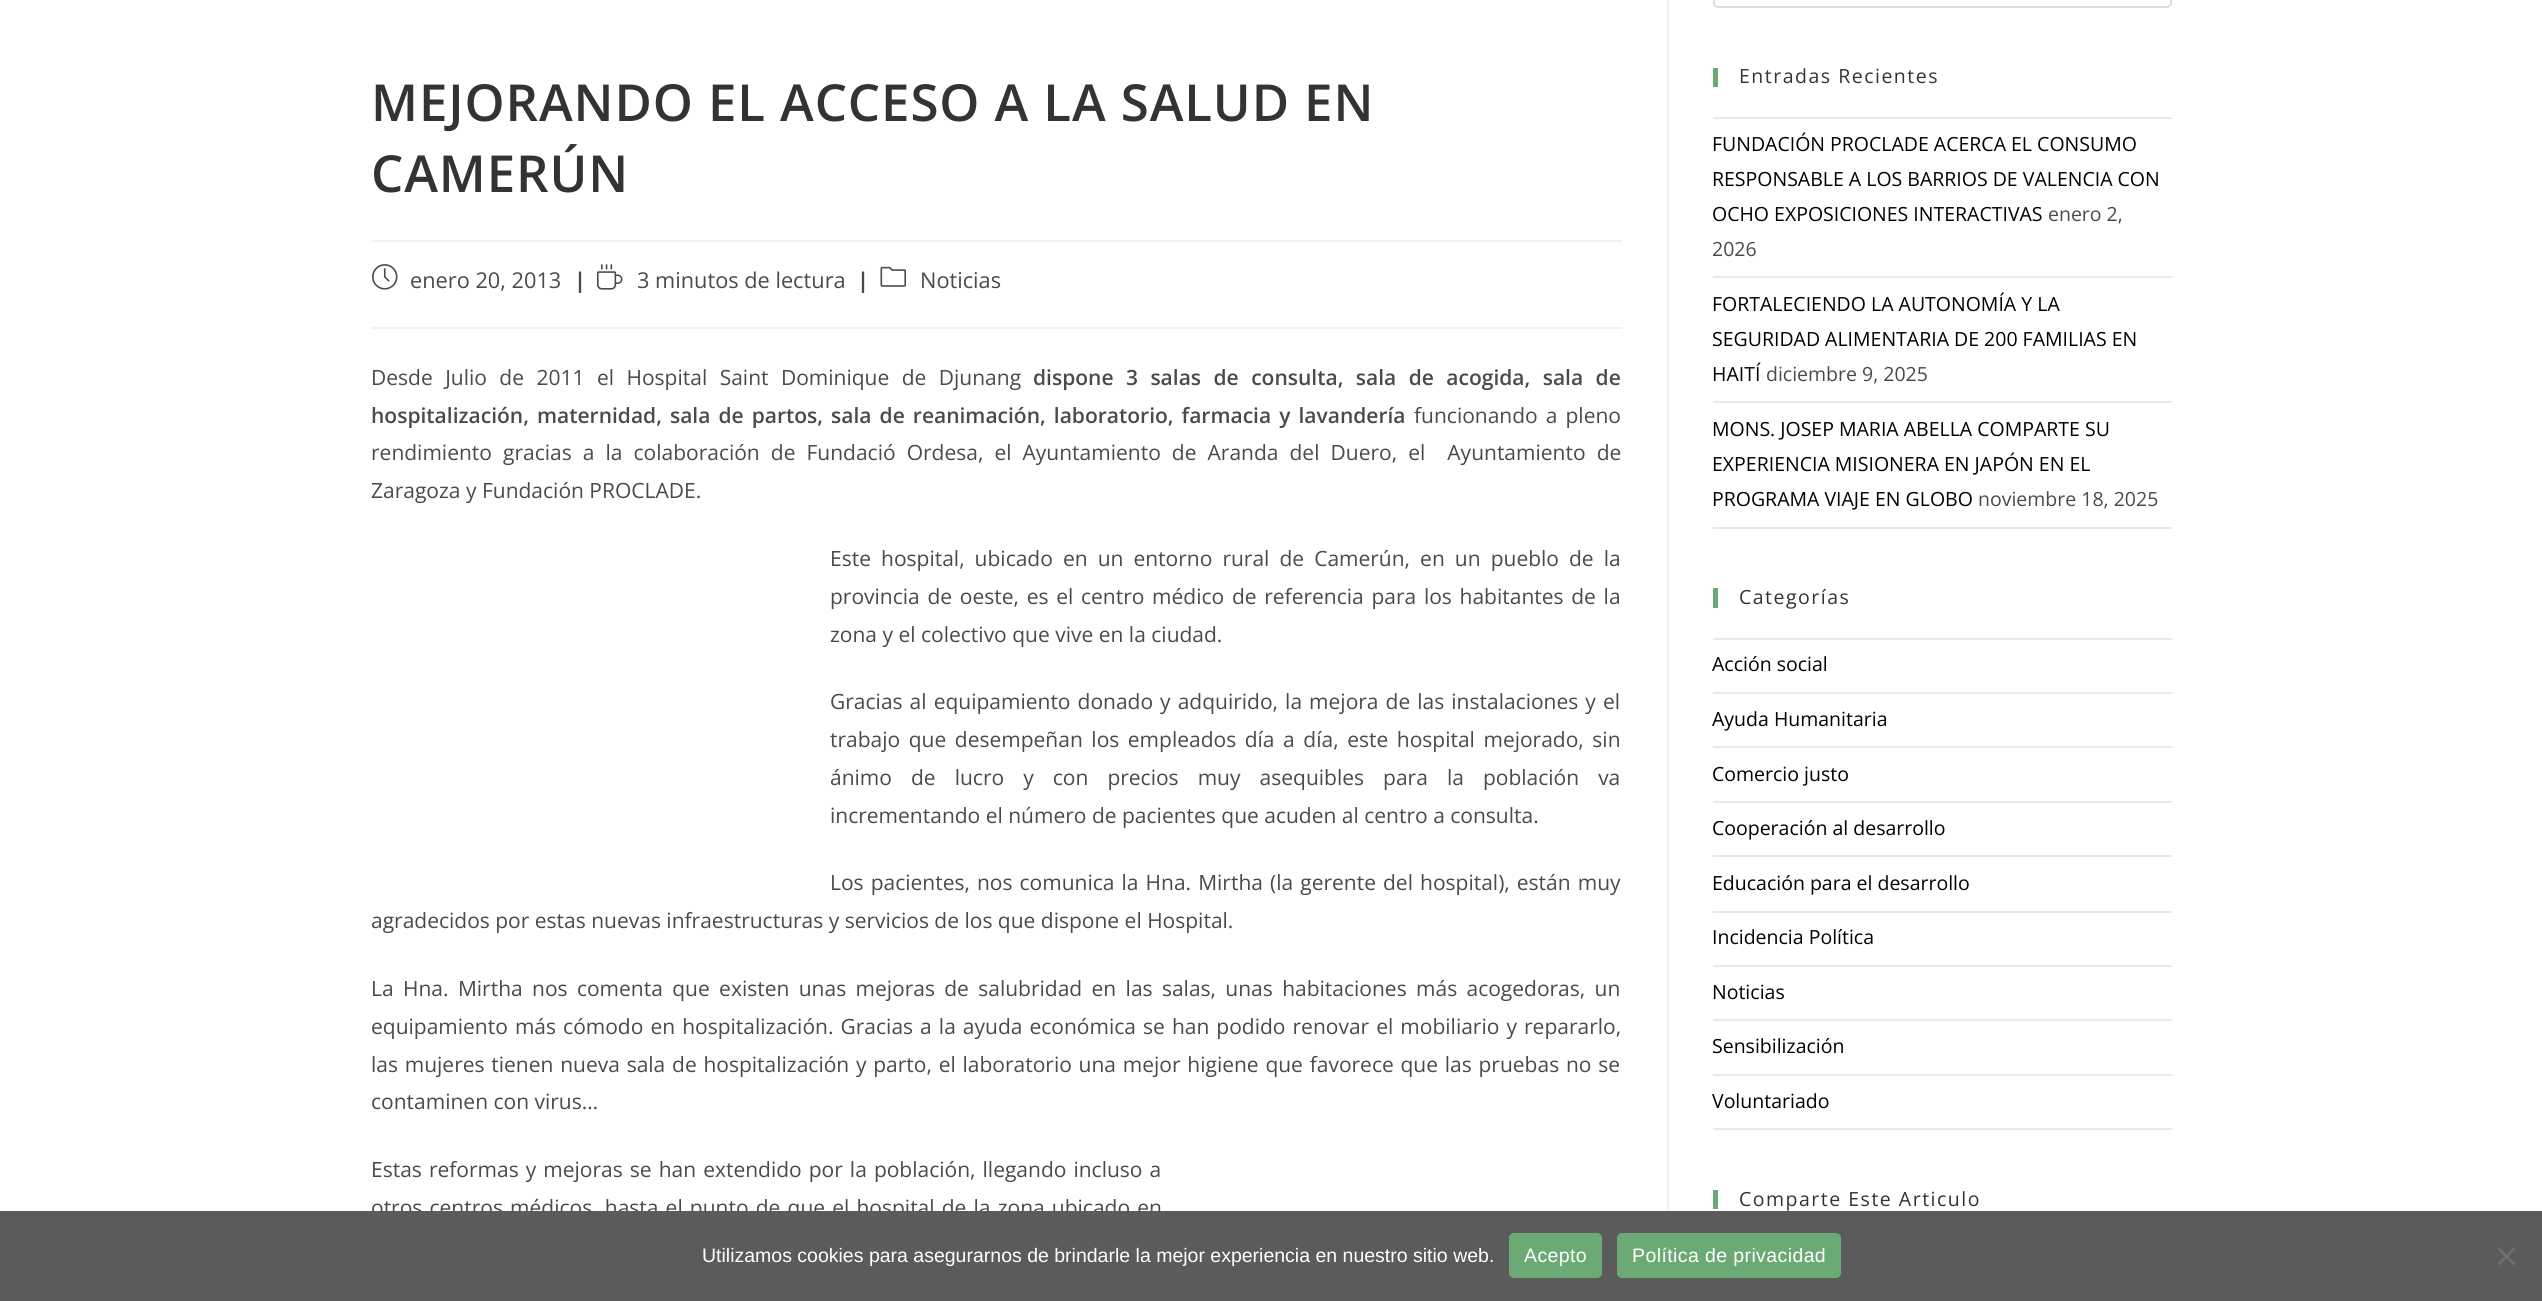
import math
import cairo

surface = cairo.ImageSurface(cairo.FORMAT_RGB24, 2542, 1301)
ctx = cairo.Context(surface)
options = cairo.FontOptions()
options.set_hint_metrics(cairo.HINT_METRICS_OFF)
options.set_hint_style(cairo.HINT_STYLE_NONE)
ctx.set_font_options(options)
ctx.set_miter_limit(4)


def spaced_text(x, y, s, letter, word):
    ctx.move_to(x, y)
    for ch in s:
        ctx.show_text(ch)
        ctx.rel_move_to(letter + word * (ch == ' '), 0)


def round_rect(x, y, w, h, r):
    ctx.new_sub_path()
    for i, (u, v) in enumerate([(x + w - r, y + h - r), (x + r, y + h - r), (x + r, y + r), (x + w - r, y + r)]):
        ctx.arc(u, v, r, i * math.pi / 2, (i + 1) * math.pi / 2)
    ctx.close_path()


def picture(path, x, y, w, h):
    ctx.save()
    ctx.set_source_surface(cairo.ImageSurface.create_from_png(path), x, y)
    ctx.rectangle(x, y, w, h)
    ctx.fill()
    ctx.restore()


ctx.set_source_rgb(1, 1, 1)
ctx.paint()
ctx.set_source_rgb(0.945, 0.945, 0.945)
ctx.rectangle(1667, 0, 2, 1211)
ctx.fill()
ctx.rectangle(372, 240, 1250, 2)
ctx.fill()
ctx.select_font_face("Open Sans SemiBold")
ctx.set_font_size(51)
ctx.set_source_rgb(0.2, 0.2, 0.2)
spaced_text(371, 121, "MEJORANDO EL ACCESO A LA SALUD EN", 0.9, 0)
spaced_text(371, 192, "CAMERÚN", 0.9, 0)
ctx.set_source_rgb(0.945, 0.945, 0.945)
ctx.rectangle(372, 327, 1250, 2)
ctx.fill()
picture("img1.png", 372, 264, 26, 26)
ctx.select_font_face("Open Sans")
ctx.set_font_size(21.75)
ctx.set_source_rgb(0.29, 0.29, 0.29)
ctx.move_to(410, 288)
ctx.show_text("enero 20, 2013")
ctx.select_font_face("Open Sans", cairo.FONT_SLANT_NORMAL, cairo.FONT_WEIGHT_BOLD)
ctx.move_to(574, 288)
ctx.show_text("|")
picture("img2.png", 597, 264, 26, 26)
ctx.select_font_face("Open Sans")
ctx.move_to(637, 288)
ctx.show_text("3 minutos de lectura")
ctx.select_font_face("Open Sans", cairo.FONT_SLANT_NORMAL, cairo.FONT_WEIGHT_BOLD)
ctx.move_to(857, 288)
ctx.show_text("|")
picture("img3.png", 880, 266, 26, 21)
ctx.select_font_face("Open Sans")
ctx.move_to(920, 288)
ctx.show_text("Noticias")
ctx.set_font_size(21)
spaced_text(371, 385, "Desde Julio de 2011 el Hospital Saint Dominique de Djunang", 0, 7)
ctx.select_font_face("Open Sans SemiBold")
spaced_text(1033, 385, "dispone 3 salas de consulta, sala de acogida, sala de", 0, 7)
spaced_text(371, 423, "hospitalización, maternidad, sala de partos, sala de reanimación, laboratorio, farmacia y lavandería", 0, 2.6)
ctx.select_font_face("Open Sans")
spaced_text(1414, 423, "funcionando a pleno", 0, 2.6)
spaced_text(371, 460, "rendimiento gracias a la colaboración de Fundació Ordesa, el Ayuntamiento de Aranda del Duero, el  Ayuntamiento de", 0, 5.6)
ctx.move_to(371, 498)
ctx.show_text("Zaragoza y Fundación PROCLADE.")
spaced_text(830, 566, "Este hospital, ubicado en un entorno rural de Camerún, en un pueblo de la", 0, 4.6)
spaced_text(830, 604, "provincia de oeste, es el centro médico de referencia para los habitantes de la", 0, 2.25)
ctx.move_to(830, 642)
ctx.show_text("zona y el colectivo que vive en la ciudad.")
spaced_text(830, 709, "Gracias al equipamiento donado y adquirido, la mejora de las instalaciones y el", 0, 1.6)
spaced_text(830, 747, "trabajo que desempeñan los empleados día a día, este hospital mejorado, sin", 0, 3.1)
spaced_text(830, 785, "ánimo de lucro y con precios muy asequibles para la población va", 0, 13.6)
ctx.move_to(830, 823)
ctx.show_text("incrementando el número de pacientes que acuden al centro a consulta.")
spaced_text(830, 890, "Los pacientes, nos comunica la Hna. Mirtha (la gerente del hospital), están muy", 0, 1.6)
ctx.move_to(371, 928)
ctx.show_text("agradecidos por estas nuevas infraestructuras y servicios de los que dispone el Hospital.")
spaced_text(371, 996, "La Hna. Mirtha nos comenta que existen unas mejoras de salubridad en las salas, unas habitaciones más acogedoras, un", 0, 3.9)
spaced_text(371, 1034, "equipamiento más cómodo en hospitalización. Gracias a la ayuda económica se han podido renovar el mobiliario y repararlo,", 0, 1.6)
spaced_text(371, 1072, "las mujeres tienen nueva sala de hospitalización y parto, el laboratorio una mejor higiene que favorece que las pruebas no se", 0, 1.3)
ctx.move_to(371, 1109)
ctx.show_text("contaminen con virus…")
spaced_text(371, 1177, "Estas reformas y mejoras se han extendido por la población, llegando incluso a", 0, 1.6)
spaced_text(371, 1215, "otros centros médicos, hasta el punto de que el hospital de la zona ubicado en", 0, 1.7)
round_rect(1714, -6, 457, 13, 4)
ctx.set_source_rgb(0.867, 0.867, 0.867)
ctx.stroke()
ctx.set_source_rgb(0.416, 0.659, 0.451)
ctx.rectangle(1713, 68, 5, 19)
ctx.fill()
ctx.set_font_size(19.5)
ctx.set_source_rgb(0.2, 0.2, 0.2)
spaced_text(1739, 83, "Entradas Recientes", 1.5, 0)
ctx.set_source_rgb(0.914, 0.914, 0.914)
ctx.rectangle(1713, 117, 459, 2)
ctx.fill()
ctx.rectangle(1713, 276, 459, 2)
ctx.fill()
ctx.set_source_rgb(0, 0, 0)
ctx.move_to(1712, 151)
ctx.show_text("FUNDACIÓN PROCLADE ACERCA EL CONSUMO")
ctx.move_to(1712, 186)
ctx.show_text("RESPONSABLE A LOS BARRIOS DE VALENCIA CON")
ctx.move_to(1712, 221)
ctx.show_text("OCHO EXPOSICIONES INTERACTIVAS")
ctx.set_source_rgb(0.29, 0.29, 0.29)
ctx.move_to(2048, 221)
ctx.show_text("enero 2,")
ctx.move_to(1712, 256)
ctx.show_text("2026")
ctx.set_source_rgb(0.914, 0.914, 0.914)
ctx.rectangle(1713, 401, 459, 2)
ctx.fill()
ctx.set_source_rgb(0, 0, 0)
ctx.move_to(1712, 311)
ctx.show_text("FORTALECIENDO LA AUTONOMÍA Y LA")
ctx.move_to(1712, 346)
ctx.show_text("SEGURIDAD ALIMENTARIA DE 200 FAMILIAS EN")
ctx.move_to(1712, 381)
ctx.show_text("HAITÍ")
ctx.set_source_rgb(0.29, 0.29, 0.29)
ctx.move_to(1766, 381)
ctx.show_text("diciembre 9, 2025")
ctx.set_source_rgb(0.914, 0.914, 0.914)
ctx.rectangle(1713, 527, 459, 2)
ctx.fill()
ctx.set_source_rgb(0, 0, 0)
ctx.move_to(1712, 436)
ctx.show_text("MONS. JOSEP MARIA ABELLA COMPARTE SU")
ctx.move_to(1712, 471)
ctx.show_text("EXPERIENCIA MISIONERA EN JAPÓN EN EL")
ctx.move_to(1712, 506)
ctx.show_text("PROGRAMA VIAJE EN GLOBO")
ctx.set_source_rgb(0.29, 0.29, 0.29)
ctx.move_to(1978, 506)
ctx.show_text("noviembre 18, 2025")
ctx.set_source_rgb(0.416, 0.659, 0.451)
ctx.rectangle(1713, 588, 5, 20)
ctx.fill()
ctx.set_source_rgb(0.2, 0.2, 0.2)
spaced_text(1739, 604, "Categorías", 1.5, 0)
ctx.set_source_rgb(0.914, 0.914, 0.914)
ctx.rectangle(1713, 638, 459, 2)
ctx.fill()
ctx.rectangle(1713, 692, 459, 2)
ctx.fill()
ctx.set_source_rgb(0, 0, 0)
ctx.move_to(1712, 671)
ctx.show_text("Acción social")
ctx.set_source_rgb(0.914, 0.914, 0.914)
ctx.rectangle(1713, 746, 459, 2)
ctx.fill()
ctx.set_source_rgb(0, 0, 0)
ctx.move_to(1712, 726)
ctx.show_text("Ayuda Humanitaria")
ctx.set_source_rgb(0.914, 0.914, 0.914)
ctx.rectangle(1713, 801, 459, 2)
ctx.fill()
ctx.set_source_rgb(0, 0, 0)
ctx.move_to(1712, 781)
ctx.show_text("Comercio justo")
ctx.set_source_rgb(0.914, 0.914, 0.914)
ctx.rectangle(1713, 855, 459, 2)
ctx.fill()
ctx.set_source_rgb(0, 0, 0)
ctx.move_to(1712, 835)
ctx.show_text("Cooperación al desarrollo")
ctx.set_source_rgb(0.914, 0.914, 0.914)
ctx.rectangle(1713, 911, 459, 2)
ctx.fill()
ctx.set_source_rgb(0, 0, 0)
ctx.move_to(1712, 890)
ctx.show_text("Educación para el desarrollo")
ctx.set_source_rgb(0.914, 0.914, 0.914)
ctx.rectangle(1713, 965, 459, 2)
ctx.fill()
ctx.set_source_rgb(0, 0, 0)
ctx.move_to(1712, 944)
ctx.show_text("Incidencia Política")
ctx.set_source_rgb(0.914, 0.914, 0.914)
ctx.rectangle(1713, 1019, 459, 2)
ctx.fill()
ctx.set_source_rgb(0, 0, 0)
ctx.move_to(1712, 999)
ctx.show_text("Noticias")
ctx.set_source_rgb(0.914, 0.914, 0.914)
ctx.rectangle(1713, 1074, 459, 2)
ctx.fill()
ctx.set_source_rgb(0, 0, 0)
ctx.move_to(1712, 1053)
ctx.show_text("Sensibilización")
ctx.set_source_rgb(0.914, 0.914, 0.914)
ctx.rectangle(1713, 1128, 459, 2)
ctx.fill()
ctx.set_source_rgb(0, 0, 0)
ctx.move_to(1712, 1108)
ctx.show_text("Voluntariado")
ctx.set_source_rgb(0.416, 0.659, 0.451)
ctx.rectangle(1713, 1190, 5, 19)
ctx.fill()
ctx.set_source_rgb(0.2, 0.2, 0.2)
spaced_text(1739, 1206, "Comparte Este Articulo", 1.5, 0)
ctx.set_source_rgb(0.357, 0.357, 0.357)
ctx.rectangle(0, 1211, 2542, 90)
ctx.fill()
ctx.select_font_face("Liberation Sans")
ctx.set_source_rgb(1, 1, 1)
ctx.move_to(702, 1262)
ctx.show_text("Utilizamos cookies para asegurarnos de brindarle la mejor experiencia en nuestro sitio web.")
ctx.set_source_rgb(0.42, 0.667, 0.459)
round_rect(1509, 1233, 93, 45, 5)
ctx.fill()
ctx.set_source_rgb(1, 1, 1)
spaced_text(1524, 1262, "Acepto", 0.4, 0)
ctx.set_source_rgb(0.42, 0.667, 0.459)
round_rect(1617, 1233, 224, 45, 5)
ctx.fill()
ctx.set_source_rgb(1, 1, 1)
spaced_text(1632, 1262, "Política de privacidad", 0.4, 0)
ctx.set_source_rgb(0.431, 0.431, 0.431)
ctx.new_path()
ctx.move_to(2513.5, 1247.5)
ctx.line_to(2515.5, 1249.5)
ctx.line_to(2499.5, 1265.5)
ctx.line_to(2497.5, 1263.5)
ctx.close_path()
ctx.fill()
ctx.new_path()
ctx.move_to(2497.5, 1249.5)
ctx.line_to(2499.5, 1247.5)
ctx.line_to(2515.5, 1263.5)
ctx.line_to(2513.5, 1265.5)
ctx.close_path()
ctx.fill()
surface.write_to_png("page.png")
